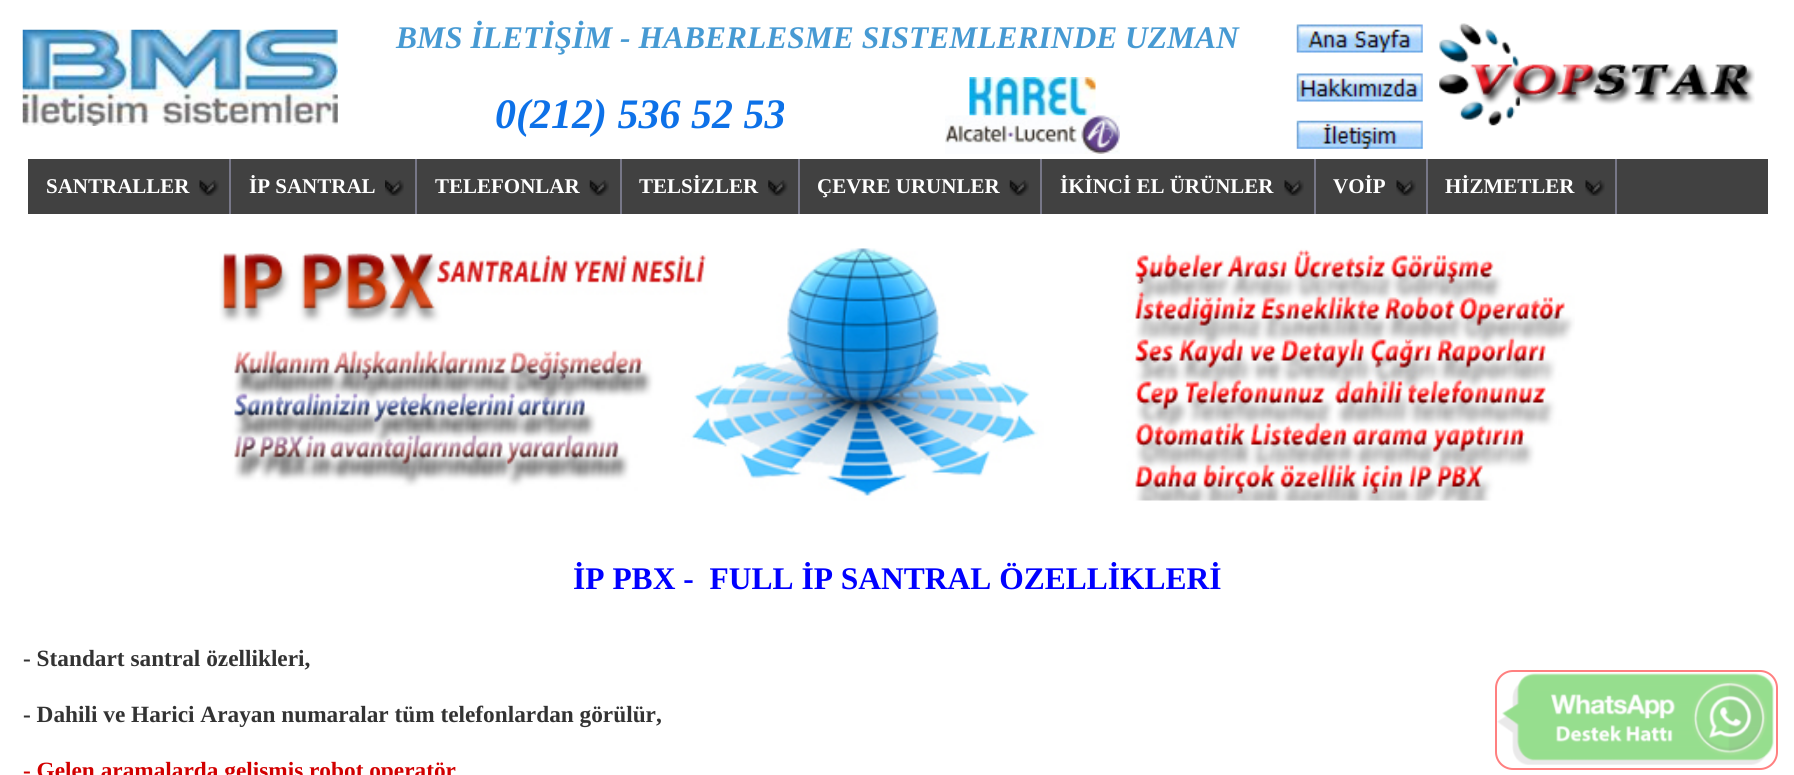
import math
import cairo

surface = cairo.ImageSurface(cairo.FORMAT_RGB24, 1794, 775)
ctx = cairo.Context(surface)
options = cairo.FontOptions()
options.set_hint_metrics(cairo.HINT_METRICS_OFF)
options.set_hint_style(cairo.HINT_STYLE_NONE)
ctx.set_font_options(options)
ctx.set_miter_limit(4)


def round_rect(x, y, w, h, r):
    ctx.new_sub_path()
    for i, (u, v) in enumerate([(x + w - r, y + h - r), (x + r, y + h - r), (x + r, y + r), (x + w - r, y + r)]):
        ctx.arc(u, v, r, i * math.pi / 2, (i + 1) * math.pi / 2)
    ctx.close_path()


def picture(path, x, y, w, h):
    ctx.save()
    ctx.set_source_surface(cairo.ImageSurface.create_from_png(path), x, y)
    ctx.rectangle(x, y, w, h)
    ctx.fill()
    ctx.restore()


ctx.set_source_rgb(1, 1, 1)
ctx.paint()
picture("img1.png", 22, 29, 316, 97)
ctx.select_font_face("Liberation Serif", cairo.FONT_SLANT_ITALIC, cairo.FONT_WEIGHT_BOLD)
ctx.set_font_size(31.5)
ctx.set_source_rgb(0.278, 0.604, 0.827)
ctx.move_to(396, 48)
ctx.show_text("BMS İLETİŞİM - HABERLESME SISTEMLERINDE UZMAN")
ctx.set_font_size(42)
ctx.set_source_rgb(0.051, 0.443, 0.91)
ctx.move_to(495, 128)
ctx.show_text("0(212) 536 52 53")
picture("img2.png", 969, 77, 127, 39)
picture("img3.png", 945, 115, 175, 39)
picture("img4.png", 1296, 24, 127, 29)
picture("img5.png", 1296, 73, 127, 29)
picture("img6.png", 1296, 120, 127, 29)
picture("img7.png", 1439, 23, 316, 103)
ctx.set_source_rgb(0.255, 0.255, 0.255)
ctx.rectangle(28, 159, 1740, 55)
ctx.fill()
ctx.set_source_rgb(0.467, 0.467, 0.533)
ctx.rectangle(229, 159, 2, 55)
ctx.fill()
ctx.select_font_face("Liberation Serif", cairo.FONT_SLANT_NORMAL, cairo.FONT_WEIGHT_BOLD)
ctx.set_font_size(21)
ctx.set_source_rgb(1, 1, 1)
ctx.move_to(46, 193)
ctx.show_text("SANTRALLER")
picture("img8.png", 199, 180, 20, 16)
ctx.set_source_rgb(0.467, 0.467, 0.533)
ctx.rectangle(415, 159, 2, 55)
ctx.fill()
ctx.set_source_rgb(1, 1, 1)
ctx.move_to(249, 193)
ctx.show_text("İP SANTRAL")
picture("img9.png", 385, 180, 19, 16)
ctx.set_source_rgb(0.467, 0.467, 0.533)
ctx.rectangle(620, 159, 2, 55)
ctx.fill()
ctx.set_source_rgb(1, 1, 1)
ctx.move_to(435, 193)
ctx.show_text("TELEFONLAR")
picture("img10.png", 589, 180, 20, 16)
ctx.set_source_rgb(0.467, 0.467, 0.533)
ctx.rectangle(798, 159, 2, 55)
ctx.fill()
ctx.set_source_rgb(1, 1, 1)
ctx.move_to(639, 193)
ctx.show_text("TELSİZLER")
picture("img11.png", 768, 180, 20, 16)
ctx.set_source_rgb(0.467, 0.467, 0.533)
ctx.rectangle(1040, 159, 2, 55)
ctx.fill()
ctx.set_source_rgb(1, 1, 1)
ctx.move_to(817, 193)
ctx.show_text("ÇEVRE URUNLER")
picture("img12.png", 1009, 180, 20, 16)
ctx.set_source_rgb(0.467, 0.467, 0.533)
ctx.rectangle(1314, 159, 2, 55)
ctx.fill()
ctx.set_source_rgb(1, 1, 1)
ctx.move_to(1060, 193)
ctx.show_text("İKİNCİ EL ÜRÜNLER")
picture("img13.png", 1284, 180, 20, 16)
ctx.set_source_rgb(0.467, 0.467, 0.533)
ctx.rectangle(1426, 159, 2, 55)
ctx.fill()
ctx.set_source_rgb(1, 1, 1)
ctx.move_to(1333, 193)
ctx.show_text("VOİP")
picture("img8.png", 1396, 180, 20, 16)
ctx.set_source_rgb(0.467, 0.467, 0.533)
ctx.rectangle(1615, 159, 2, 55)
ctx.fill()
ctx.set_source_rgb(1, 1, 1)
ctx.move_to(1445, 193)
ctx.show_text("HİZMETLER")
picture("img8.png", 1585, 180, 20, 16)
picture("img14.png", 219, 248, 1356, 253)
ctx.set_font_size(31.5)
ctx.set_source_rgb(0, 0, 1)
ctx.move_to(573, 589)
ctx.show_text("İP PBX -  FULL İP SANTRAL ÖZELLİKLERİ")
ctx.set_font_size(23.3)
ctx.set_source_rgb(0.2, 0.2, 0.2)
ctx.move_to(23, 666)
ctx.show_text("- Standart santral özellikleri,")
ctx.move_to(23, 722)
ctx.show_text("- Dahili ve Harici Arayan numaralar tüm telefonlardan görülür,")
ctx.set_source_rgb(0.824, 0, 0)
ctx.move_to(23, 778)
ctx.show_text("- Gelen aramalarda gelişmiş robot operatör")
round_rect(1496, 671, 281, 98, 17)
ctx.set_source_rgb(1, 0.502, 0.502)
ctx.stroke()
picture("img15.png", 1497, 673, 277, 92)
surface.write_to_png("page.png")
